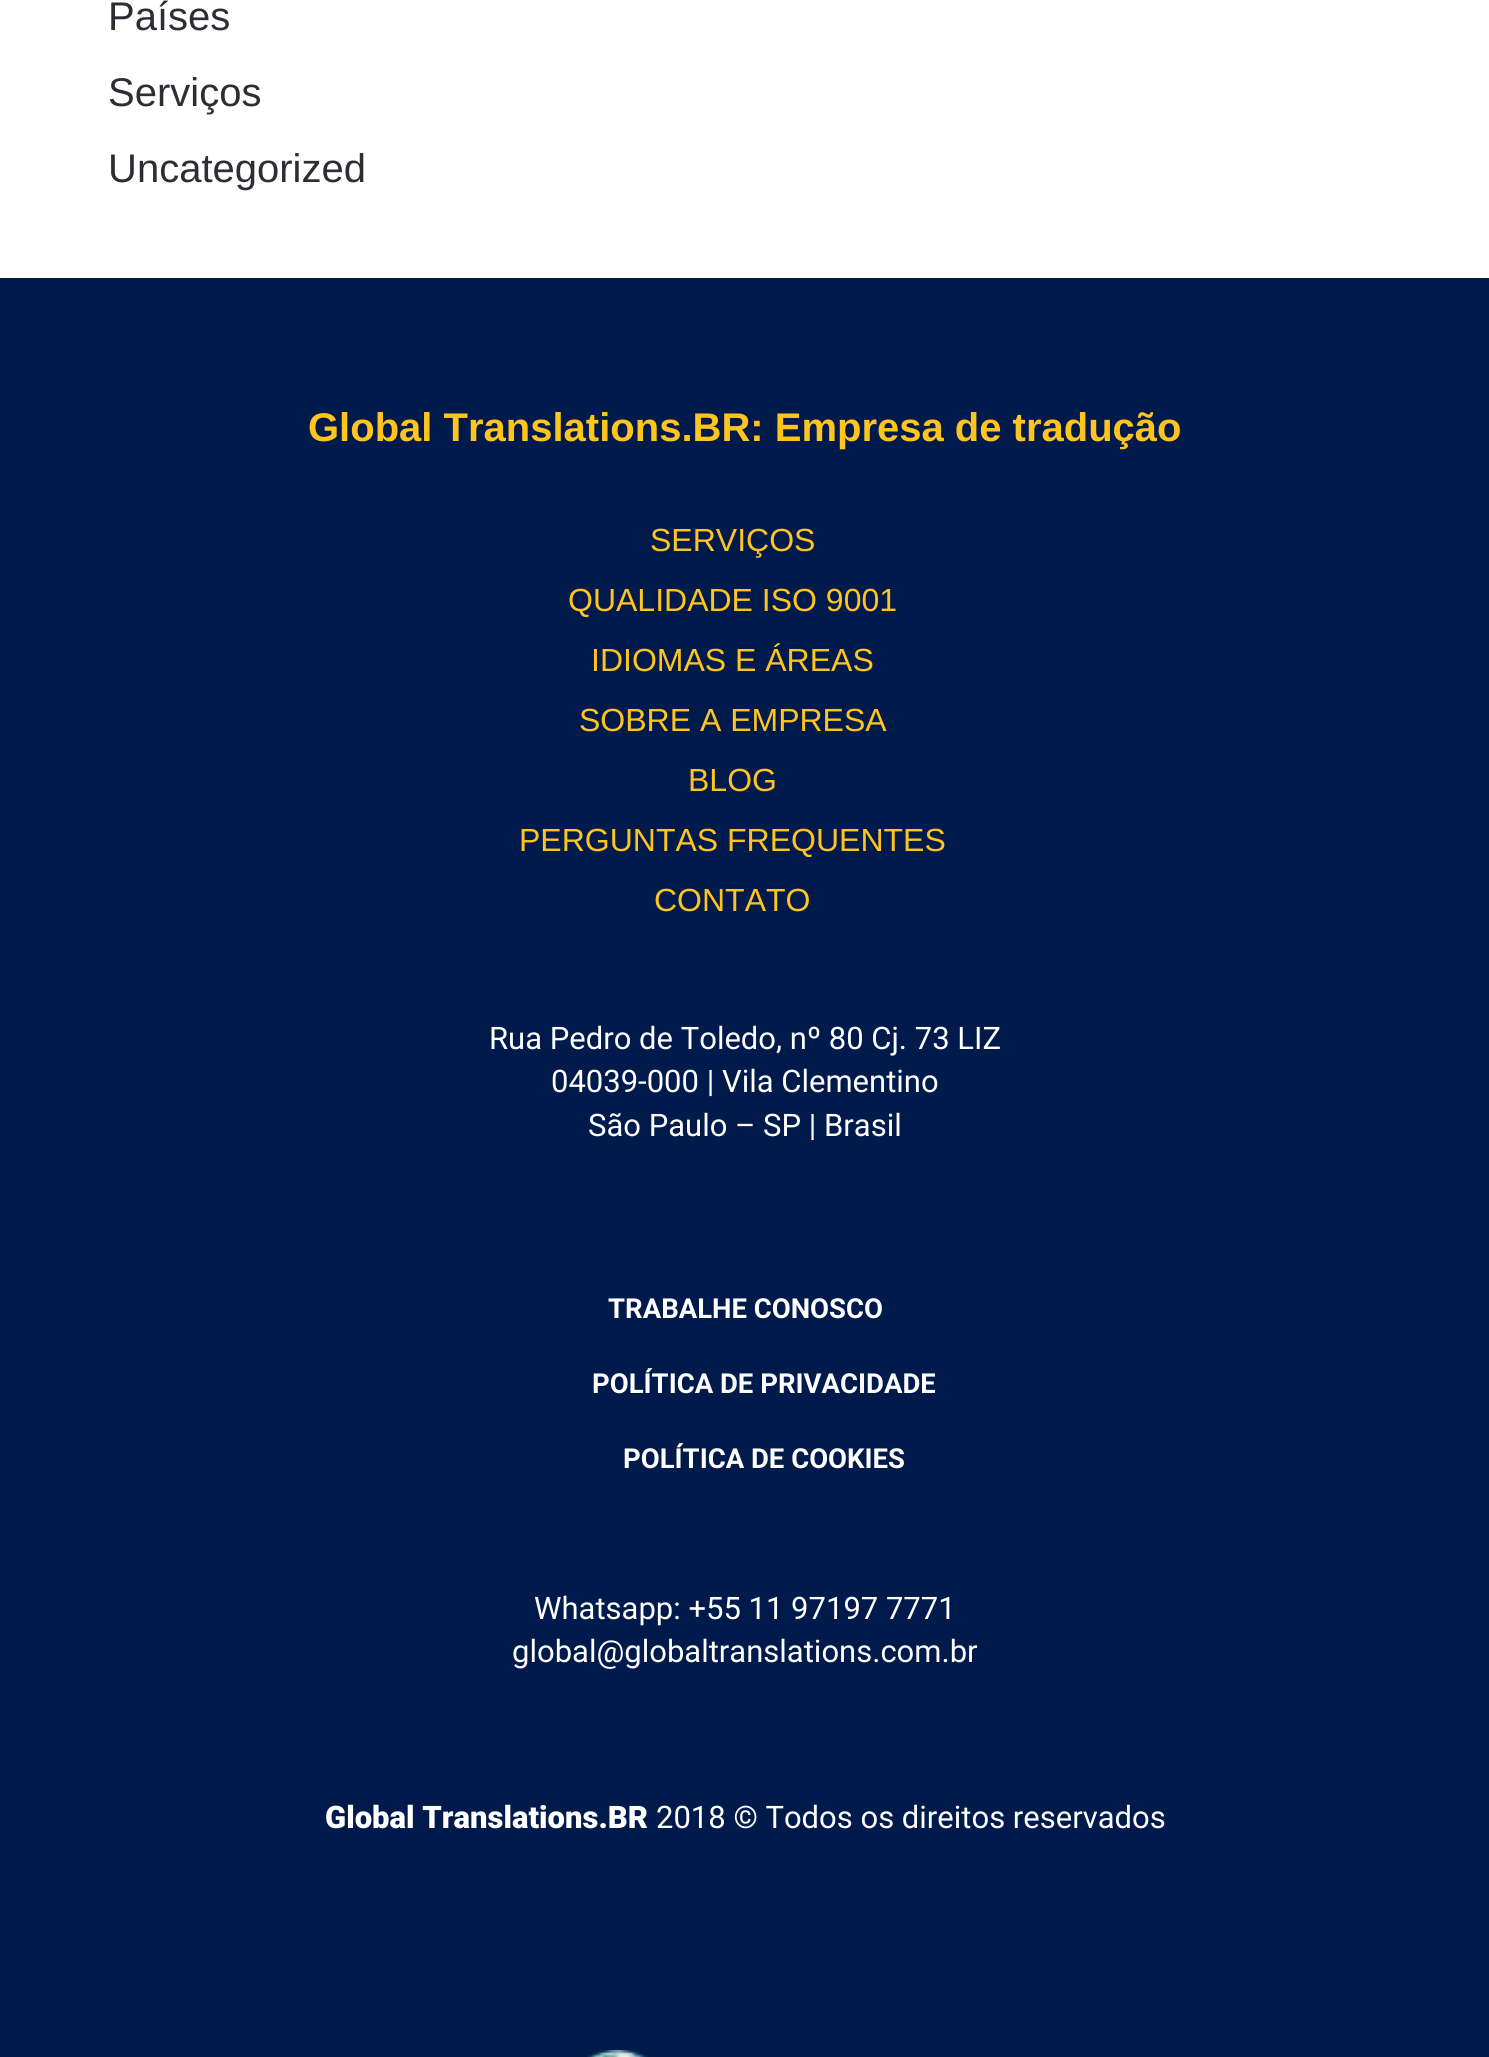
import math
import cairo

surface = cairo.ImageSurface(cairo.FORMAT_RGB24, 1489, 2057)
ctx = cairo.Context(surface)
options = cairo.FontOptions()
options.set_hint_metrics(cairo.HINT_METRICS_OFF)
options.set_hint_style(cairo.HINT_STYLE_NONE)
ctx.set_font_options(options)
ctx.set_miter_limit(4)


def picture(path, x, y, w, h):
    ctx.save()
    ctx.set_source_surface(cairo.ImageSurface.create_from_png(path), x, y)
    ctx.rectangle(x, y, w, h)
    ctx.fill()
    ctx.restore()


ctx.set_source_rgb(1, 1, 1)
ctx.paint()
ctx.select_font_face("Liberation Sans")
ctx.set_font_size(40)
ctx.set_source_rgb(0.176, 0.176, 0.204)
ctx.move_to(108, 30)
ctx.show_text("Países")
ctx.move_to(108, 106)
ctx.show_text("Serviços")
ctx.move_to(108, 182)
ctx.show_text("Uncategorized")
ctx.set_source_rgb(0, 0.102, 0.294)
ctx.rectangle(0, 278, 1489, 1779)
ctx.fill()
ctx.select_font_face("Liberation Sans", cairo.FONT_SLANT_NORMAL, cairo.FONT_WEIGHT_BOLD)
ctx.set_source_rgb(1, 0.769, 0.118)
ctx.move_to(308, 441)
ctx.show_text("Global Translations.BR: Empresa de tradução")
ctx.select_font_face("Liberation Sans")
ctx.set_font_size(32)
ctx.move_to(650, 551)
ctx.show_text("SERVIÇOS")
ctx.move_to(568, 611)
ctx.show_text("QUALIDADE ISO 9001")
ctx.move_to(591, 671)
ctx.show_text("IDIOMAS E ÁREAS")
ctx.move_to(579, 731)
ctx.show_text("SOBRE A EMPRESA")
ctx.move_to(688, 791)
ctx.show_text("BLOG")
ctx.move_to(519, 851)
ctx.show_text("PERGUNTAS FREQUENTES")
ctx.move_to(654, 911)
ctx.show_text("CONTATO")
ctx.select_font_face("Roboto")
ctx.set_font_size(31)
ctx.set_source_rgb(1, 1, 1)
ctx.move_to(489, 1049)
ctx.show_text("Rua Pedro de Toledo, nº 80 Cj. 73 LIZ")
ctx.move_to(551, 1092)
ctx.show_text("04039-000 | Vila Clementino")
ctx.move_to(588, 1136)
ctx.show_text("São Paulo – SP | Brasil")
ctx.select_font_face("Roboto", cairo.FONT_SLANT_NORMAL, cairo.FONT_WEIGHT_BOLD)
ctx.set_font_size(27.5)
ctx.move_to(608, 1318)
ctx.show_text("TRABALHE CONOSCO")
ctx.move_to(592, 1393)
ctx.show_text("POLÍTICA DE PRIVACIDADE")
ctx.move_to(623, 1468)
ctx.show_text("POLÍTICA DE COOKIES")
ctx.select_font_face("Roboto")
ctx.set_font_size(31)
ctx.move_to(534, 1619)
ctx.show_text("Whatsapp: +55 11 97197 7771")
ctx.move_to(512, 1662)
ctx.show_text("global@globaltranslations.com.br")
ctx.select_font_face("Roboto Black")
ctx.move_to(325, 1828)
ctx.show_text("Global Translations.BR")
ctx.select_font_face("Roboto")
ctx.move_to(656, 1828)
ctx.show_text("2018 © Todos os direitos reservados")
picture("img1.png", 587, 2050, 61, 7)
surface.write_to_png("page.png")
